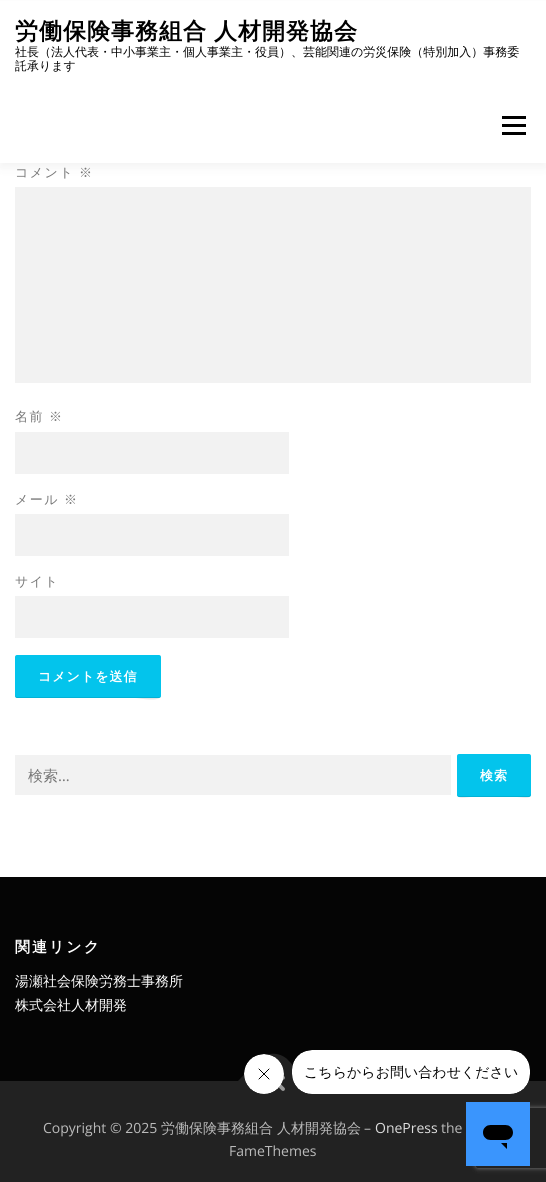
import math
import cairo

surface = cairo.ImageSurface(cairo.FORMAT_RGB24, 546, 1182)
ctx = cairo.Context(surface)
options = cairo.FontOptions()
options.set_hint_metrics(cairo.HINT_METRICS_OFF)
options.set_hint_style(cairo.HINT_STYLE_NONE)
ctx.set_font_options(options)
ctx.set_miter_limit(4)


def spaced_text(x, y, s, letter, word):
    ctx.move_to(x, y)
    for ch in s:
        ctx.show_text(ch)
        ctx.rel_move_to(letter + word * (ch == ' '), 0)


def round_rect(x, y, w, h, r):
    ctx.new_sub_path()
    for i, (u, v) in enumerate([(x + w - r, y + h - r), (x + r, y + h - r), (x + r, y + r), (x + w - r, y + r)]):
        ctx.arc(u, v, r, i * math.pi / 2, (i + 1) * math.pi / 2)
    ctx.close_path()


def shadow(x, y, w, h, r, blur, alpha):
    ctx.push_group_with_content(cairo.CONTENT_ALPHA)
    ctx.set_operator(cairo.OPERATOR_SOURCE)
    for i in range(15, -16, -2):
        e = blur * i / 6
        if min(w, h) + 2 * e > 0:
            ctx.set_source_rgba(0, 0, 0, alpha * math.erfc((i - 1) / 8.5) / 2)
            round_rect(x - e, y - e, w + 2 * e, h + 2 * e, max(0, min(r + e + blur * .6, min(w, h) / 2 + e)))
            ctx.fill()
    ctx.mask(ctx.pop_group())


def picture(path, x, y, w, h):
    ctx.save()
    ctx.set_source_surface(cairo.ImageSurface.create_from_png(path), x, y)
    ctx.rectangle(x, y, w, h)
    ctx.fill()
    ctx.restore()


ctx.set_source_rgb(1, 1, 1)
ctx.paint()
ctx.set_source_rgb(0.196, 0.196, 0.196)
shadow(0, 5, 546, 163, 0, 5, 0.06)
ctx.set_source_rgb(1, 1, 1)
ctx.rectangle(0, 1, 546, 162)
ctx.fill()
ctx.select_font_face("WenQuanYi Zen Hei", cairo.FONT_SLANT_NORMAL, cairo.FONT_WEIGHT_BOLD)
ctx.set_font_size(23)
ctx.set_source_rgb(0, 0, 0)
spaced_text(15, 39, "労働保険事務組合 人材開発協会", 1, -1)
ctx.select_font_face("WenQuanYi Zen Hei Medium")
ctx.set_font_size(12)
ctx.move_to(15, 56)
ctx.show_text("社長（法人代表・中小事業主・個人事業主・役員）、芸能関連の労災保険（特別加入）事務委")
ctx.move_to(15, 70)
ctx.show_text("託承ります")
ctx.rectangle(502, 124, 24, 3)
ctx.fill()
ctx.rectangle(502, 116, 24, 3)
ctx.fill()
ctx.rectangle(502, 132, 24, 3)
ctx.fill()
ctx.set_font_size(13)
ctx.set_source_rgb(0.467, 0.467, 0.467)
spaced_text(15, 177, "コメント", 1.5, 0)
spaced_text(79, 177, "※", 1.5, 0)
ctx.set_source_rgb(0.949, 0.949, 0.949)
ctx.rectangle(15, 187, 516, 196)
ctx.fill()
ctx.set_source_rgb(0.467, 0.467, 0.467)
spaced_text(15, 421, "名前", 1.5, 0)
spaced_text(49, 421, "※", 1.5, 0)
ctx.set_source_rgb(0.949, 0.949, 0.949)
ctx.rectangle(15, 432, 274, 42)
ctx.fill()
ctx.set_source_rgb(0.467, 0.467, 0.467)
spaced_text(15, 504, "メール", 1.5, 0)
spaced_text(64, 504, "※", 1.5, 0)
ctx.set_source_rgb(0.949, 0.949, 0.949)
ctx.rectangle(15, 514, 274, 42)
ctx.fill()
ctx.set_source_rgb(0.467, 0.467, 0.467)
spaced_text(15, 586, "サイト", 1.5, 0)
ctx.set_source_rgb(0.949, 0.949, 0.949)
ctx.rectangle(15, 596, 274, 42)
ctx.fill()
ctx.set_source_rgb(0.012, 0.769, 0.922)
round_rect(15, 655, 146, 43, 2)
ctx.fill()
ctx.set_source_rgba(0, 0, 0, 0.1)
ctx.new_path()
ctx.move_to(15, 695)
ctx.curve_to(15, 696, 15, 697, 16, 698)
ctx.line_to(135, 698)
ctx.curve_to(139, 698, 161, 703, 161, 695)
ctx.curve_to(161, 696, 160, 697, 159, 697)
ctx.line_to(17, 697)
ctx.curve_to(16, 697, 15, 696, 15, 695)
ctx.close_path()
ctx.fill()
ctx.select_font_face("WenQuanYi Zen Hei", cairo.FONT_SLANT_NORMAL, cairo.FONT_WEIGHT_BOLD)
ctx.set_source_rgb(1, 1, 1)
spaced_text(38, 681, "コメントを送信", 1, 0)
ctx.set_source_rgb(0.949, 0.949, 0.949)
ctx.rectangle(15, 755, 436, 40)
ctx.fill()
ctx.select_font_face("WenQuanYi Zen Hei Medium")
ctx.set_font_size(15)
ctx.set_source_rgb(0.467, 0.467, 0.467)
ctx.move_to(28, 781)
ctx.show_text("検索")
ctx.select_font_face("Open Sans")
ctx.move_to(58, 781)
ctx.show_text("…")
ctx.set_source_rgb(0.012, 0.769, 0.922)
round_rect(457, 754, 74, 43, 2)
ctx.fill()
ctx.set_source_rgba(0, 0, 0, 0.1)
ctx.new_path()
ctx.move_to(457, 794)
ctx.curve_to(457, 800, 467, 797, 471, 797)
ctx.line_to(517, 797)
ctx.curve_to(521, 797, 531, 800, 531, 794)
ctx.line_to(530, 795)
ctx.line_to(529, 796)
ctx.line_to(459, 796)
ctx.curve_to(458, 796, 457, 795, 457, 794)
ctx.close_path()
ctx.fill()
ctx.select_font_face("WenQuanYi Zen Hei", cairo.FONT_SLANT_NORMAL, cairo.FONT_WEIGHT_BOLD)
ctx.set_font_size(13)
ctx.set_source_rgb(1, 1, 1)
spaced_text(480, 780, "検索", 1, 0)
ctx.set_source_rgb(0.02, 0.02, 0.02)
ctx.rectangle(0, 877, 546, 204)
ctx.fill()
ctx.set_font_size(15)
ctx.set_source_rgb(1, 1, 1)
spaced_text(15, 952, "関連リンク", 2, 0)
ctx.select_font_face("WenQuanYi Zen Hei Medium")
ctx.set_font_size(14)
ctx.move_to(15, 986)
ctx.show_text("湯瀬社会保険労務士事務所")
ctx.move_to(15, 1010)
ctx.show_text("株式会社人材開発")
ctx.set_source_rgb(0.133, 0.133, 0.133)
ctx.rectangle(0, 1081, 546, 101)
ctx.fill()
ctx.new_path()
ctx.move_to(238, 1081)
ctx.line_to(259, 1059)
ctx.curve_to(267, 1052, 279, 1052, 287, 1059)
ctx.line_to(308, 1081)
ctx.line_to(273, 1116)
ctx.close_path()
ctx.fill()
picture("img1.png", 278, 1075, 7, 16)
ctx.select_font_face("Open Sans")
ctx.set_source_rgb(0.733, 0.733, 0.733)
ctx.move_to(43, 1133)
ctx.show_text("Copyright © 2025")
ctx.select_font_face("WenQuanYi Zen Hei Medium")
ctx.move_to(161, 1133)
ctx.show_text("労働保険事務組合")
ctx.move_to(277, 1133)
ctx.show_text("人材開発協会")
ctx.select_font_face("Open Sans")
ctx.move_to(364, 1133)
ctx.show_text("–")
ctx.set_source_rgb(0.867, 0.867, 0.867)
ctx.move_to(375, 1133)
ctx.show_text("OnePress")
ctx.set_source_rgb(0.733, 0.733, 0.733)
ctx.move_to(441, 1133)
ctx.show_text("the")
ctx.move_to(229, 1156)
ctx.show_text("FameThemes")
picture("img2.png", 244, 1054, 40, 40)
picture("img3.png", 292, 1050, 238, 44)
ctx.save()
ctx.set_fill_rule(cairo.FILL_RULE_EVEN_ODD)
ctx.new_path()
ctx.move_to(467, 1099)
ctx.line_to(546, 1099)
ctx.line_to(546, 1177)
ctx.line_to(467, 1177)
ctx.close_path()
ctx.move_to(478, 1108)
ctx.line_to(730, 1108)
ctx.curve_to(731, 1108, 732, 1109, 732, 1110)
ctx.line_to(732, 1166)
ctx.curve_to(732, 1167, 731, 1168, 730, 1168)
ctx.line_to(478, 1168)
ctx.curve_to(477, 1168, 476, 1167, 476, 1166)
ctx.line_to(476, 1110)
ctx.curve_to(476, 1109, 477, 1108, 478, 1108)
ctx.close_path()
ctx.clip()
ctx.set_source_rgb(0.502, 0.502, 0.502)
shadow(476, 1108, 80, 60, 2, 2.5, 1)
ctx.restore()
picture("img4.png", 466, 1102, 64, 64)
surface.write_to_png("page.png")
